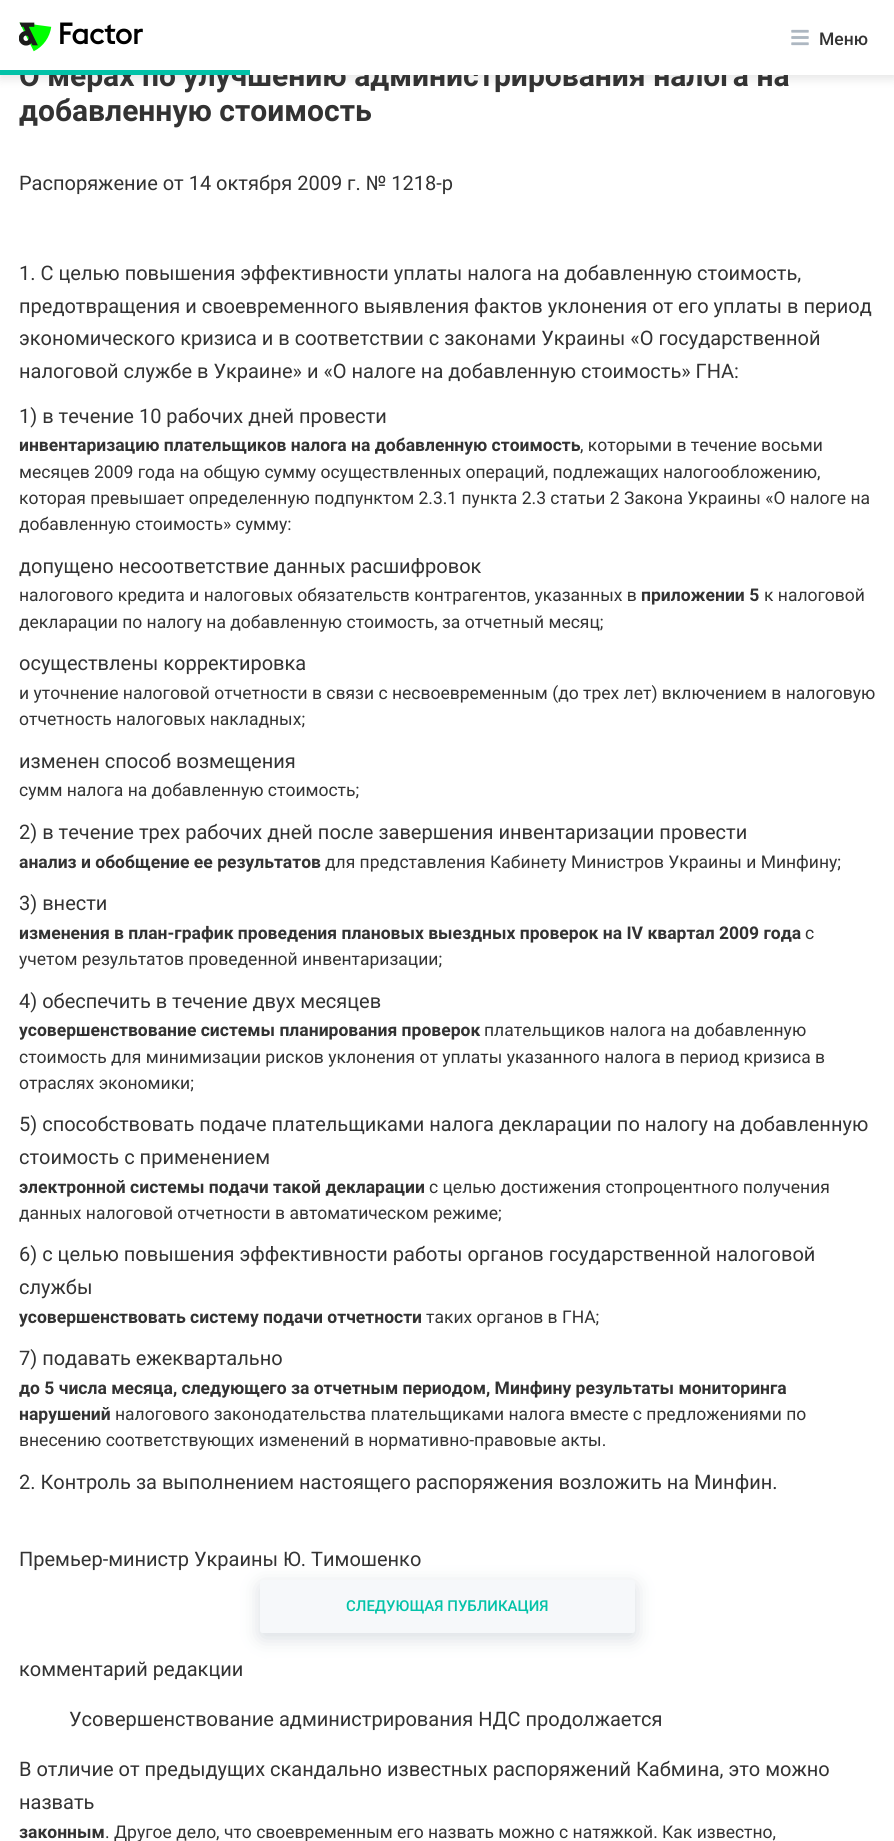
import math
import cairo

surface = cairo.ImageSurface(cairo.FORMAT_RGB24, 894, 1841)
ctx = cairo.Context(surface)
options = cairo.FontOptions()
options.set_hint_metrics(cairo.HINT_METRICS_OFF)
options.set_hint_style(cairo.HINT_STYLE_NONE)
ctx.set_font_options(options)
ctx.set_miter_limit(4)


def round_rect(x, y, w, h, r):
    ctx.new_sub_path()
    for i, (u, v) in enumerate([(x + w - r, y + h - r), (x + r, y + h - r), (x + r, y + r), (x + w - r, y + r)]):
        ctx.arc(u, v, r, i * math.pi / 2, (i + 1) * math.pi / 2)
    ctx.close_path()


def shadow(x, y, w, h, r, blur, alpha):
    ctx.push_group_with_content(cairo.CONTENT_ALPHA)
    ctx.set_operator(cairo.OPERATOR_SOURCE)
    for i in range(15, -16, -2):
        e = blur * i / 6
        if min(w, h) + 2 * e > 0:
            ctx.set_source_rgba(0, 0, 0, alpha * math.erfc((i - 1) / 8.5) / 2)
            round_rect(x - e, y - e, w + 2 * e, h + 2 * e, max(0, min(r + e + blur * .6, min(w, h) / 2 + e)))
            ctx.fill()
    ctx.mask(ctx.pop_group())


def picture(path, x, y, w, h):
    ctx.save()
    ctx.set_source_surface(cairo.ImageSurface.create_from_png(path), x, y)
    ctx.rectangle(x, y, w, h)
    ctx.fill()
    ctx.restore()


ctx.set_source_rgb(1, 1, 1)
ctx.paint()
ctx.set_source_rgb(0, 0, 0)
shadow(0, 4, 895, 75, 0, 5, 0.1)
ctx.select_font_face("Roboto", cairo.FONT_SLANT_NORMAL, cairo.FONT_WEIGHT_BOLD)
ctx.set_font_size(30)
ctx.set_source_rgb(0.2, 0.2, 0.2)
ctx.move_to(19, 86)
ctx.show_text("О мерах по улучшению администрирования налога на")
ctx.set_source_rgb(1, 1, 1)
ctx.rectangle(0, 0, 894, 75)
ctx.fill()
picture("img1.png", 19, 22, 124, 30)
picture("img2.png", 791, 29, 18, 17)
ctx.select_font_face("Roboto Medium")
ctx.set_font_size(17.5)
ctx.set_source_rgb(0.2, 0.2, 0.2)
ctx.move_to(819, 45)
ctx.show_text("Меню")
ctx.set_source_rgb(0.008, 0.761, 0.659)
ctx.rectangle(0, 70, 250, 5)
ctx.fill()
ctx.select_font_face("Roboto", cairo.FONT_SLANT_NORMAL, cairo.FONT_WEIGHT_BOLD)
ctx.set_font_size(30)
ctx.set_source_rgb(0.2, 0.2, 0.2)
ctx.move_to(19, 121)
ctx.show_text("добавленную стоимость")
ctx.select_font_face("Roboto")
ctx.set_font_size(20)
ctx.move_to(19, 190)
ctx.show_text("Распоряжение от 14 октября 2009 г. № 1218-р")
ctx.move_to(19, 280)
ctx.show_text("1. С целью повышения эффективности уплаты налога на добавленную стоимость,")
ctx.move_to(19, 313)
ctx.show_text("предотвращения и своевременного выявления фактов уклонения от его уплаты в период")
ctx.move_to(19, 345)
ctx.show_text("экономического кризиса и в соответствии с законами Украины «О государственной")
ctx.move_to(19, 378)
ctx.show_text("налоговой службе в Украине» и «О налоге на добавленную стоимость» ГНА:")
ctx.move_to(19, 423)
ctx.show_text("1) в течение 10 рабочих дней провести")
ctx.select_font_face("Roboto", cairo.FONT_SLANT_NORMAL, cairo.FONT_WEIGHT_BOLD)
ctx.set_font_size(17.5)
ctx.move_to(19, 451)
ctx.show_text("инвентаризацию плательщиков налога на добавленную стоимость")
ctx.select_font_face("Roboto")
ctx.move_to(580, 451)
ctx.show_text(", которыми в течение восьми")
ctx.move_to(19, 478)
ctx.show_text("месяцев 2009 года на общую сумму осуществленных операций, подлежащих налогообложению,")
ctx.move_to(19, 504)
ctx.show_text("которая превышает определенную подпунктом 2.3.1 пункта 2.3 статьи 2 Закона Украины «О налоге на")
ctx.move_to(19, 530)
ctx.show_text("добавленную стоимость» сумму:")
ctx.set_font_size(20)
ctx.move_to(19, 573)
ctx.show_text("допущено несоответствие данных расшифровок")
ctx.set_font_size(17.5)
ctx.move_to(19, 601)
ctx.show_text("налогового кредита и налоговых обязательств контрагентов, указанных в")
ctx.select_font_face("Roboto", cairo.FONT_SLANT_NORMAL, cairo.FONT_WEIGHT_BOLD)
ctx.move_to(641, 601)
ctx.show_text("приложении 5")
ctx.select_font_face("Roboto")
ctx.move_to(764, 601)
ctx.show_text("к налоговой")
ctx.move_to(19, 628)
ctx.show_text("декларации по налогу на добавленную стоимость, за отчетный месяц;")
ctx.set_font_size(20)
ctx.move_to(19, 670)
ctx.show_text("осуществлены корректировка")
ctx.set_font_size(17.5)
ctx.move_to(19, 699)
ctx.show_text("и уточнение налоговой отчетности в связи с несвоевременным (до трех лет) включением в налоговую")
ctx.move_to(19, 725)
ctx.show_text("отчетность налоговых накладных;")
ctx.set_font_size(20)
ctx.move_to(19, 768)
ctx.show_text("изменен способ возмещения")
ctx.set_font_size(17.5)
ctx.move_to(19, 796)
ctx.show_text("сумм налога на добавленную стоимость;")
ctx.set_font_size(20)
ctx.move_to(19, 839)
ctx.show_text("2) в течение трех рабочих дней после завершения инвентаризации провести")
ctx.select_font_face("Roboto", cairo.FONT_SLANT_NORMAL, cairo.FONT_WEIGHT_BOLD)
ctx.set_font_size(17.5)
ctx.move_to(19, 868)
ctx.show_text("анализ и обобщение ее результатов")
ctx.select_font_face("Roboto")
ctx.move_to(325, 868)
ctx.show_text("для представления Кабинету Министров Украины и Минфину;")
ctx.set_font_size(20)
ctx.move_to(19, 910)
ctx.show_text("3) внести")
ctx.select_font_face("Roboto", cairo.FONT_SLANT_NORMAL, cairo.FONT_WEIGHT_BOLD)
ctx.set_font_size(17.5)
ctx.move_to(19, 939)
ctx.show_text("изменения в план-график проведения плановых выездных проверок на IV квартал 2009 года")
ctx.select_font_face("Roboto")
ctx.move_to(805, 939)
ctx.show_text("с")
ctx.move_to(19, 965)
ctx.show_text("учетом результатов проведенной инвентаризации;")
ctx.set_font_size(20)
ctx.move_to(19, 1008)
ctx.show_text("4) обеспечить в течение двух месяцев")
ctx.select_font_face("Roboto", cairo.FONT_SLANT_NORMAL, cairo.FONT_WEIGHT_BOLD)
ctx.set_font_size(17.5)
ctx.move_to(19, 1036)
ctx.show_text("усовершенствование системы планирования проверок")
ctx.select_font_face("Roboto")
ctx.move_to(484, 1036)
ctx.show_text("плательщиков налога на добавленную")
ctx.move_to(19, 1063)
ctx.show_text("стоимость для минимизации рисков уклонения от уплаты указанного налога в период кризиса в")
ctx.move_to(19, 1089)
ctx.show_text("отраслях экономики;")
ctx.set_font_size(20)
ctx.move_to(19, 1131)
ctx.show_text("5) способствовать подаче плательщиками налога декларации по налогу на добавленную")
ctx.move_to(19, 1164)
ctx.show_text("стоимость с применением")
ctx.select_font_face("Roboto", cairo.FONT_SLANT_NORMAL, cairo.FONT_WEIGHT_BOLD)
ctx.set_font_size(17.5)
ctx.move_to(19, 1193)
ctx.show_text("электронной системы подачи такой декларации")
ctx.select_font_face("Roboto")
ctx.move_to(429, 1193)
ctx.show_text("с целью достижения стопроцентного получения")
ctx.move_to(19, 1219)
ctx.show_text("данных налоговой отчетности в автоматическом режиме;")
ctx.set_font_size(20)
ctx.move_to(19, 1261)
ctx.show_text("6) с целью повышения эффективности работы органов государственной налоговой")
ctx.move_to(19, 1294)
ctx.show_text("службы")
ctx.select_font_face("Roboto", cairo.FONT_SLANT_NORMAL, cairo.FONT_WEIGHT_BOLD)
ctx.set_font_size(17.5)
ctx.move_to(19, 1323)
ctx.show_text("усовершенствовать систему подачи отчетности")
ctx.select_font_face("Roboto")
ctx.move_to(426, 1323)
ctx.show_text("таких органов в ГНА;")
ctx.set_font_size(20)
ctx.move_to(19, 1365)
ctx.show_text("7) подавать ежеквартально")
ctx.select_font_face("Roboto", cairo.FONT_SLANT_NORMAL, cairo.FONT_WEIGHT_BOLD)
ctx.set_font_size(17.5)
ctx.move_to(19, 1394)
ctx.show_text("до 5 числа месяца, следующего за отчетным периодом, Минфину результаты мониторинга")
ctx.move_to(19, 1420)
ctx.show_text("нарушений")
ctx.select_font_face("Roboto")
ctx.move_to(115, 1420)
ctx.show_text("налогового законодательства плательщиками налога вместе с предложениями по")
ctx.move_to(19, 1446)
ctx.show_text("внесению соответствующих изменений в нормативно-правовые акты.")
ctx.set_font_size(20)
ctx.move_to(19, 1489)
ctx.show_text("2. Контроль за выполнением настоящего распоряжения возложить на Минфин.")
ctx.move_to(19, 1566)
ctx.show_text("Премьер-министр Украины Ю. Тимошенко")
ctx.move_to(19, 1676)
ctx.show_text("комментарий редакции")
ctx.move_to(69, 1726)
ctx.show_text("Усовершенствование администрирования НДС продолжается")
ctx.move_to(19, 1776)
ctx.show_text("В отличие от предыдущих скандально известных распоряжений Кабмина, это можно")
ctx.move_to(19, 1809)
ctx.show_text("назвать")
ctx.select_font_face("Roboto", cairo.FONT_SLANT_NORMAL, cairo.FONT_WEIGHT_BOLD)
ctx.set_font_size(17.5)
ctx.move_to(19, 1838)
ctx.show_text("законным")
ctx.select_font_face("Roboto")
ctx.move_to(105, 1838)
ctx.show_text(". Другое дело, что своевременным его назвать можно с натяжкой. Как известно,")
ctx.set_source_rgb(0.678, 0.718, 0.757)
shadow(260, 1585, 375, 53, 2.5, 9.5, 0.48)
ctx.set_source_rgb(0.961, 0.969, 0.98)
round_rect(260, 1580, 375, 53, 2.5)
ctx.fill()
ctx.select_font_face("Roboto Medium")
ctx.set_font_size(15)
ctx.set_source_rgb(0.008, 0.761, 0.659)
ctx.move_to(346, 1611)
ctx.show_text("СЛЕДУЮЩАЯ ПУБЛИКАЦИЯ")
surface.write_to_png("page.png")
